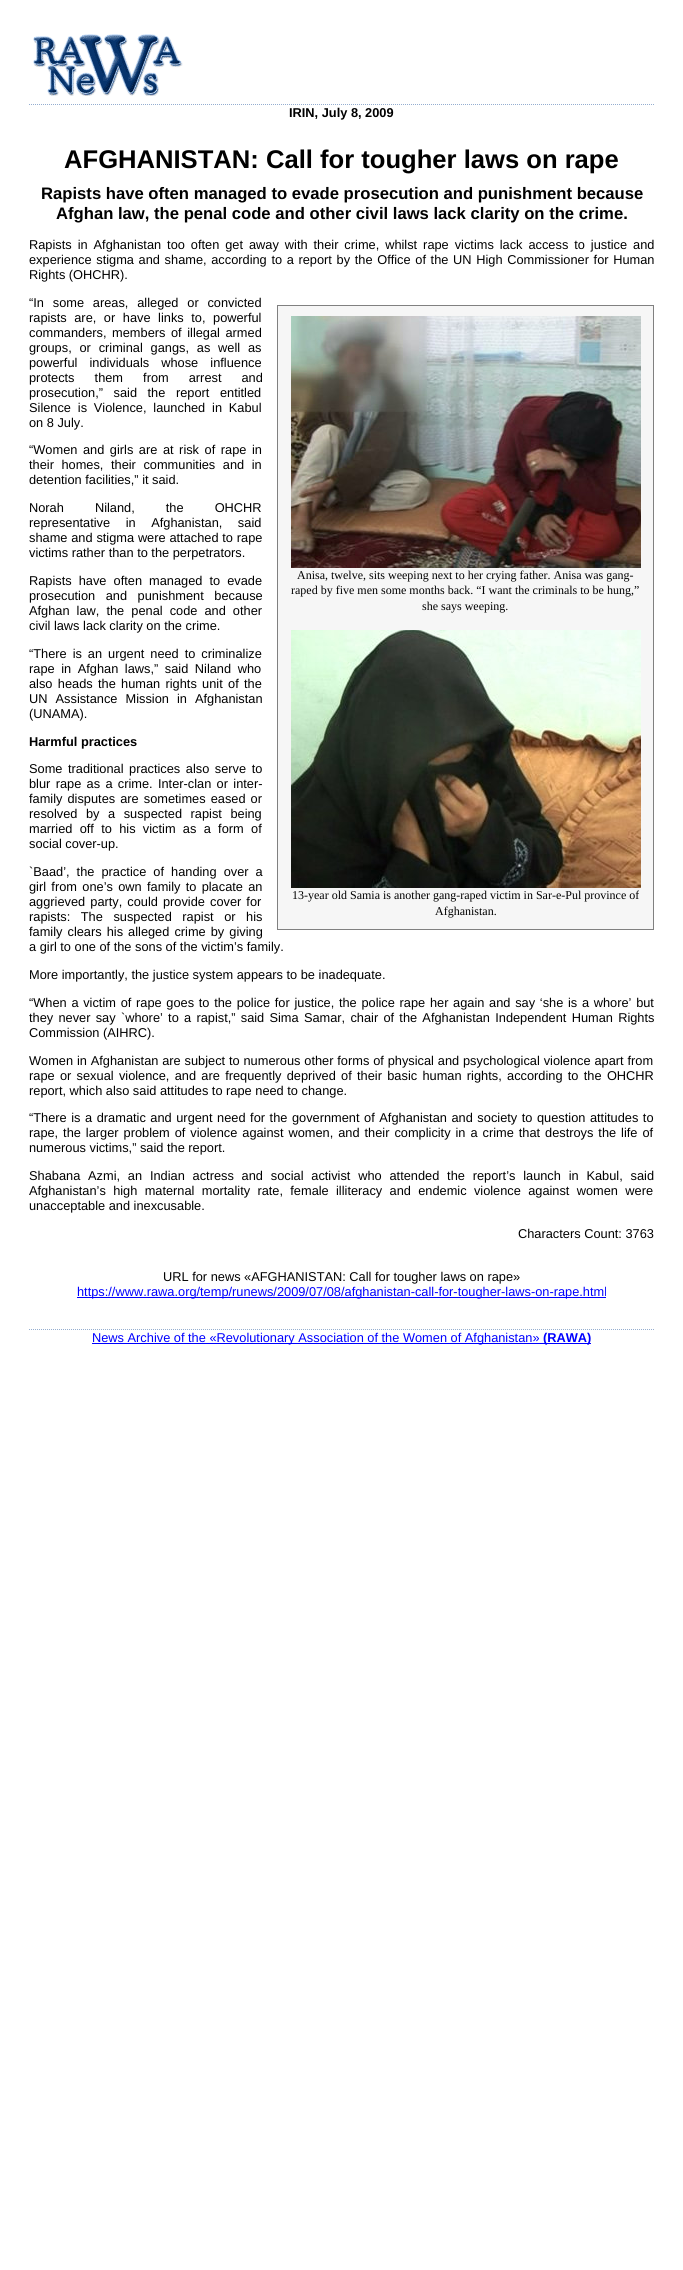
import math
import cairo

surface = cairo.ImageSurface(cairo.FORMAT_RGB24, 683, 2270)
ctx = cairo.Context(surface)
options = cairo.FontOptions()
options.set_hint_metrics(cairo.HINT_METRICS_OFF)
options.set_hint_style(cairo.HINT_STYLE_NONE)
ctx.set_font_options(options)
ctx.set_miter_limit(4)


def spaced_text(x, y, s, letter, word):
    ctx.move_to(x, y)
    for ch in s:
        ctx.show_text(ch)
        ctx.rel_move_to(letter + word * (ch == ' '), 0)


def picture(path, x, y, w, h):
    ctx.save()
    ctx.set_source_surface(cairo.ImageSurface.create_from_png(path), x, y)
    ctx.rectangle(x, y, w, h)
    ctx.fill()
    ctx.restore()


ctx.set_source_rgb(1, 1, 1)
ctx.paint()
ctx.new_path()
ctx.move_to(29, 104.5)
ctx.line_to(654, 104.5)
ctx.set_source_rgb(0.584, 0.682, 0.816)
ctx.set_line_width(1)
ctx.set_dash([1, 1])
ctx.stroke()
picture("img1.png", 33, 34, 150, 62)
ctx.select_font_face("Liberation Sans", cairo.FONT_SLANT_NORMAL, cairo.FONT_WEIGHT_BOLD)
ctx.set_font_size(12.8)
ctx.set_source_rgb(0, 0, 0)
ctx.move_to(289, 117)
ctx.show_text("IRIN, July 8, 2009")
ctx.set_font_size(25.6)
ctx.move_to(64, 168)
ctx.show_text("AFGHANISTAN: Call for tougher laws on rape")
ctx.set_font_size(16.65)
ctx.move_to(41, 199)
ctx.show_text("Rapists have often managed to evade prosecution and punishment because")
ctx.move_to(56, 219)
ctx.show_text("Afghan law, the penal code and other civil laws lack clarity on the crime.")
ctx.select_font_face("Liberation Sans")
ctx.set_font_size(12.8)
spaced_text(29, 249, "Rapists in Afghanistan too often get away with their crime, whilst rape victims lack access to justice and", 0, 2.4)
spaced_text(29, 264, "experience stigma and shame, according to a report by the Office of the UN High Commissioner for Human", 0, 1.1)
ctx.move_to(29, 279)
ctx.show_text("Rights (OHCHR).")
spaced_text(29, 307, "“In some areas, alleged or convicted", 0, 5.25)
spaced_text(29, 322, "rapists are, or have links to, powerful", 0, 4)
spaced_text(29, 337, "commanders, members of illegal armed", 0, 2)
spaced_text(29, 352, "groups, or criminal gangs, as well as", 0, 4.25)
spaced_text(29, 367, "powerful individuals whose influence", 0, 8.5)
spaced_text(29, 382, "protects them from arrest and", 0, 16.5)
spaced_text(29, 397, "prosecution,” said the report entitled", 0, 7)
spaced_text(29, 412, "Silence is Violence, launched in Kabul", 0, 3.25)
ctx.move_to(29, 427)
ctx.show_text("on 8 July.")
spaced_text(29, 454, "“Women and girls are at risk of rape in", 0, 2)
spaced_text(29, 469, "their homes, their communities and in", 0, 4)
ctx.move_to(29, 484)
ctx.show_text("detention facilities,” it said.")
spaced_text(29, 512, "Norah Niland, the OHCHR", 0, 27.5)
spaced_text(29, 527, "representative in Afghanistan, said", 0, 12)
spaced_text(29, 542, "shame and stigma were attached to rape", 0, 0.25)
ctx.move_to(29, 557)
ctx.show_text("victims rather than to the perpetrators.")
spaced_text(29, 585, "Rapists have often managed to evade", 0, 3.5)
spaced_text(29, 600, "prosecution and punishment because", 0, 7)
spaced_text(29, 615, "Afghan law, the penal code and other", 0, 3.5)
ctx.move_to(29, 630)
ctx.show_text("civil laws lack clarity on the crime.")
ctx.set_source_rgb(0.961, 0.961, 0.961)
ctx.rectangle(277.5, 305.5, 376, 624)
ctx.fill_preserve()
ctx.set_source_rgb(0.502, 0.502, 0.502)
ctx.set_dash([])
ctx.stroke()
picture("img2.png", 291, 316, 350, 252)
ctx.select_font_face("Liberation Serif")
ctx.set_font_size(12)
ctx.set_source_rgb(0, 0, 0)
ctx.move_to(297, 579)
ctx.show_text("Anisa, twelve, sits weeping next to her crying father. Anisa was gang-")
ctx.move_to(291, 594)
ctx.show_text("raped by five men some months back. “I want the criminals to be hung,”")
ctx.move_to(422, 610)
ctx.show_text("she says weeping.")
picture("img3.png", 291, 630, 350, 258)
ctx.move_to(292, 899)
ctx.show_text("13-year old Samia is another gang-raped victim in Sar-e-Pul province of")
ctx.move_to(435, 915)
ctx.show_text("Afghanistan.")
ctx.select_font_face("Liberation Sans")
ctx.set_font_size(12.8)
spaced_text(29, 658, "“There is an urgent need to criminalize", 0, 2.4)
spaced_text(29, 673, "rape in Afghan laws,” said Niland who", 0, 3)
spaced_text(29, 688, "also heads the human rights unit of the", 0, 1.75)
spaced_text(29, 703, "UN Assistance Mission in Afghanistan", 0, 4.5)
ctx.move_to(29, 718)
ctx.show_text("(UNAMA).")
ctx.select_font_face("Liberation Sans", cairo.FONT_SLANT_NORMAL, cairo.FONT_WEIGHT_BOLD)
ctx.move_to(29, 746)
ctx.show_text("Harmful practices")
ctx.select_font_face("Liberation Sans")
spaced_text(29, 773, "Some traditional practices also serve to", 0, 2)
spaced_text(29, 788, "blur rape as a crime. Inter-clan or inter-", 0, 1.75)
spaced_text(29, 803, "family disputes are sometimes eased or", 0, 1.5)
spaced_text(29, 818, "resolved by a suspected rapist being", 0, 5)
spaced_text(29, 833, "married off to his victim as a form of", 0, 3.75)
ctx.move_to(29, 848)
ctx.show_text("social cover-up.")
spaced_text(29, 876, "`Baad’, the practice of handing over a", 0, 3.5)
spaced_text(29, 891, "girl from one’s own family to placate an", 0, 1.75)
spaced_text(29, 906, "aggrieved party, could provide cover for", 0, 1.5)
spaced_text(29, 921, "rapists: The suspected rapist or his", 0, 7)
spaced_text(29, 936, "family clears his alleged crime by giving", 0, 1.5)
ctx.move_to(29, 951)
ctx.show_text("a girl to one of the sons of the victim’s family.")
ctx.move_to(29, 979)
ctx.show_text("More importantly, the justice system appears to be inadequate.")
spaced_text(29, 1007, "“When a victim of rape goes to the police for justice, the police rape her again and say ‘she is a whore’ but", 0, 1.15)
spaced_text(29, 1022, "they never say `whore’ to a rapist,” said Sima Samar, chair of the Afghanistan Independent Human Rights", 0, 1.7)
ctx.move_to(29, 1037)
ctx.show_text("Commission (AIHRC).")
spaced_text(29, 1065, "Women in Afghanistan are subject to numerous other forms of physical and psychological violence apart from", 0, 0.3)
spaced_text(29, 1080, "rape or sexual violence, and are frequently deprived of their basic human rights, according to the OHCHR", 0, 1.75)
ctx.move_to(29, 1095)
ctx.show_text("report, which also said attitudes to rape need to change.")
spaced_text(29, 1122, "“There is a dramatic and urgent need for the government of Afghanistan and society to question attitudes to", 0, 1)
spaced_text(29, 1137, "rape, the larger problem of violence against women, and their complicity in a crime that destroys the life of", 0, 1.4)
ctx.move_to(29, 1152)
ctx.show_text("numerous victims,” said the report.")
spaced_text(29, 1180, "Shabana Azmi, an Indian actress and social activist who attended the report’s launch in Kabul, said", 0, 4.25)
spaced_text(29, 1195, "Afghanistan’s high maternal mortality rate, female illiteracy and endemic violence against women were", 0, 3.75)
ctx.move_to(29, 1210)
ctx.show_text("unacceptable and inexcusable.")
ctx.move_to(518, 1238)
ctx.show_text("Characters Count: 3763")
ctx.move_to(163, 1281)
ctx.show_text("URL for news «AFGHANISTAN: Call for tougher laws on rape»")
ctx.set_source_rgb(0, 0, 1)
ctx.rectangle(77, 1297, 529, 1)
ctx.fill()
ctx.move_to(77, 1296)
ctx.show_text("https://www.rawa.org/temp/runews/2009/07/08/afghanistan-call-for-tougher-laws-on-rape.html")
ctx.new_path()
ctx.move_to(29, 1329.5)
ctx.line_to(654, 1329.5)
ctx.set_source_rgb(0.584, 0.682, 0.816)
ctx.set_dash([1, 1])
ctx.stroke()
ctx.set_source_rgb(0, 0, 1)
ctx.rectangle(92, 1343, 499, 1)
ctx.fill()
ctx.move_to(92, 1342)
ctx.show_text("News Archive of the «Revolutionary Association of the Women of Afghanistan»")
ctx.select_font_face("Liberation Sans", cairo.FONT_SLANT_NORMAL, cairo.FONT_WEIGHT_BOLD)
ctx.move_to(543, 1342)
ctx.show_text("(RAWA)")
surface.write_to_png("page.png")
